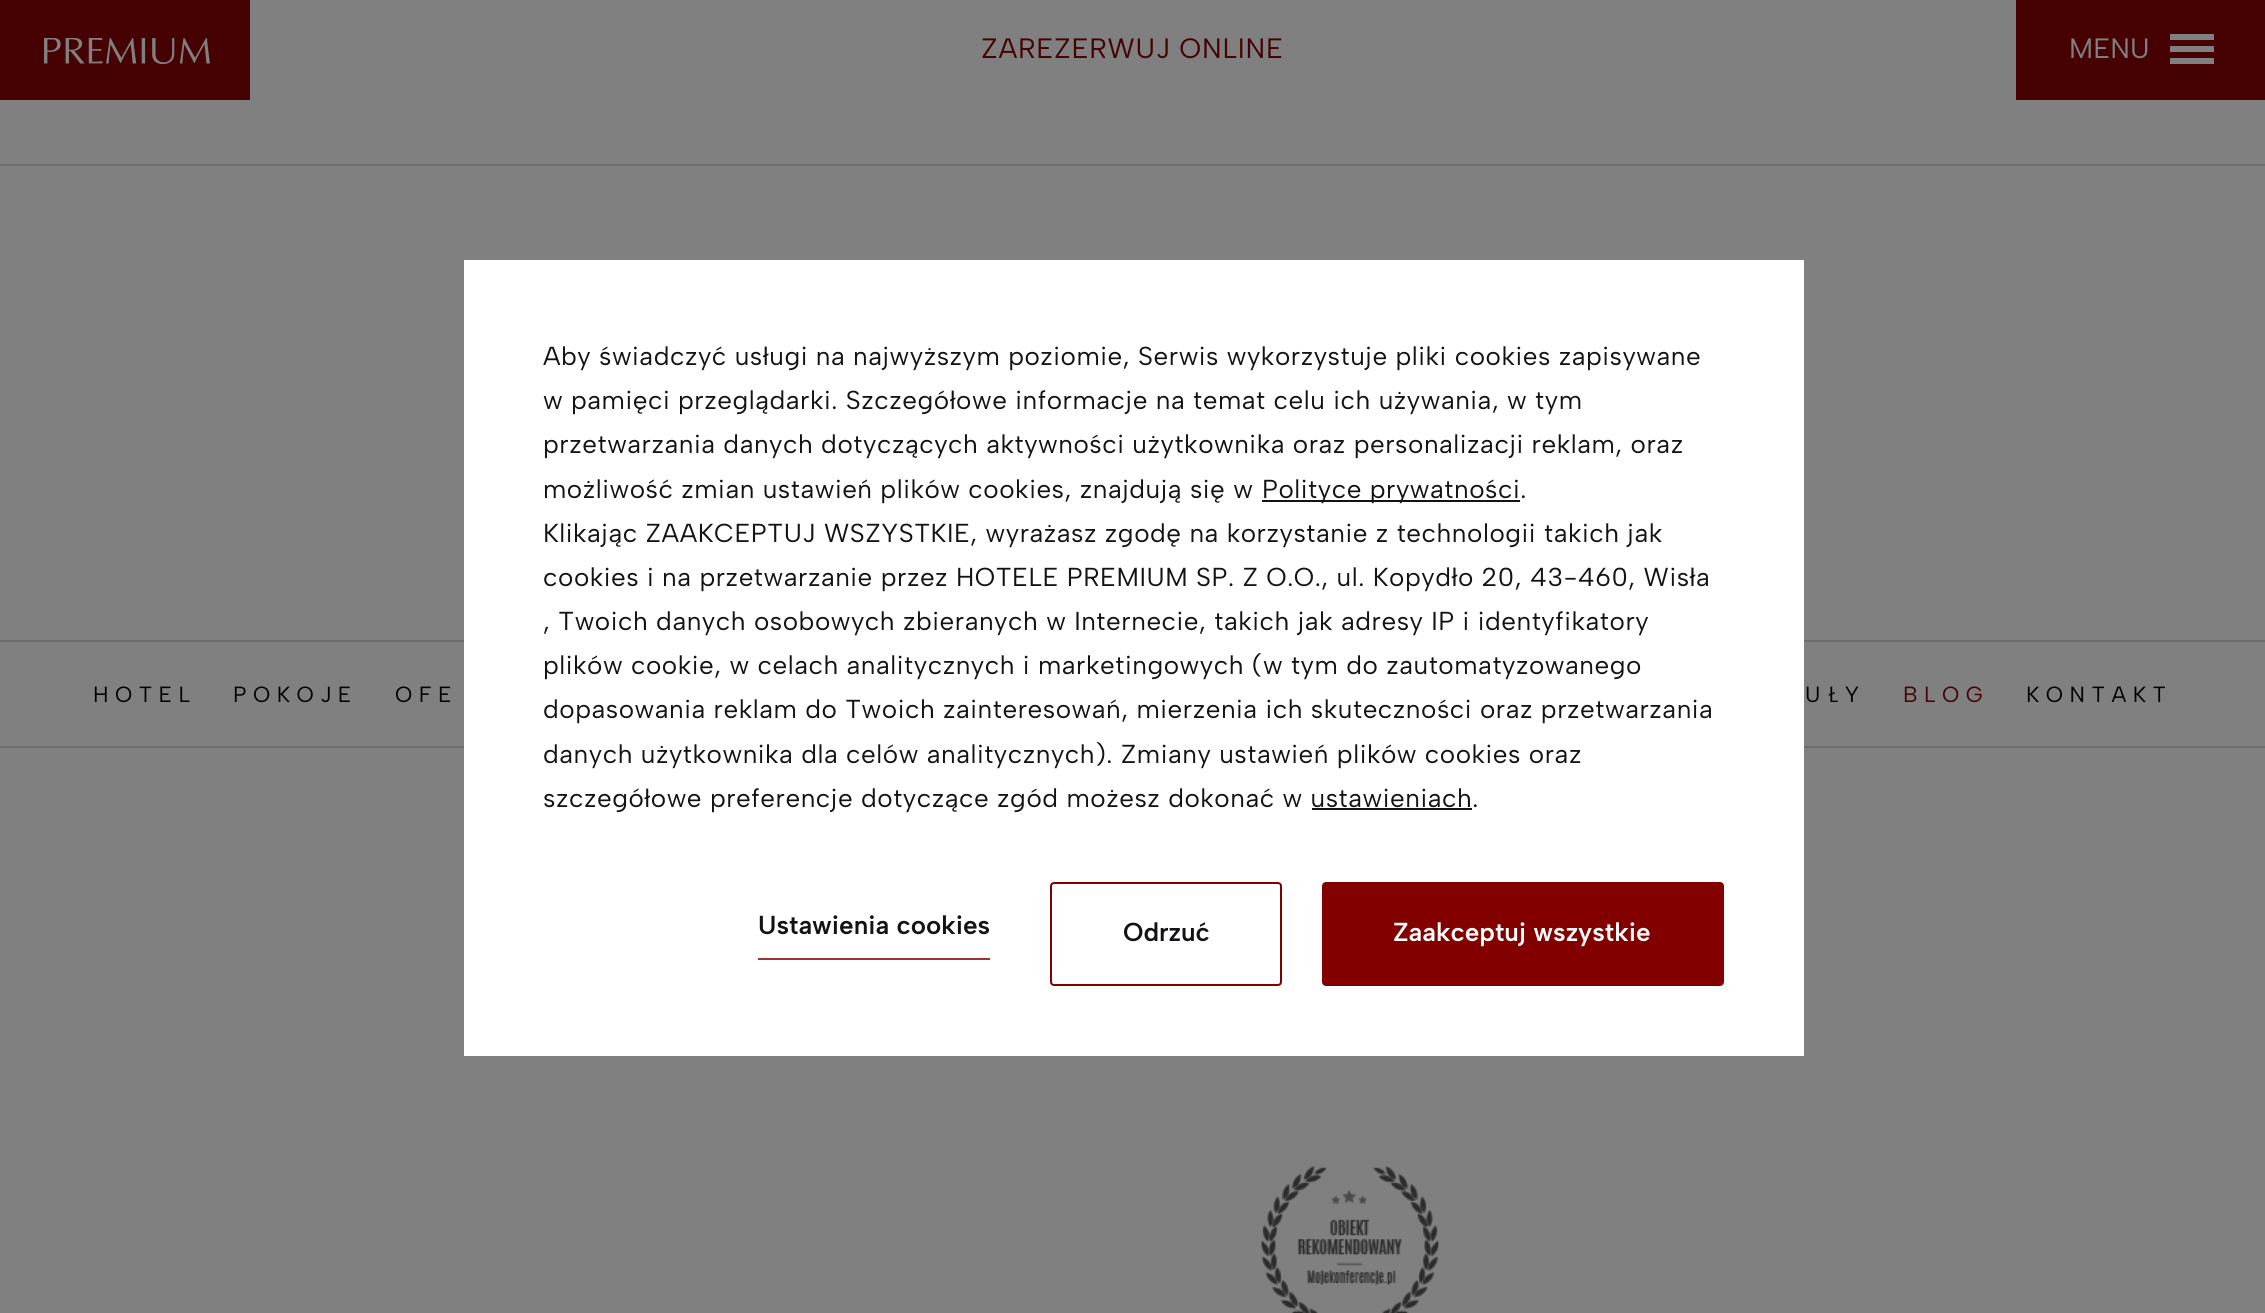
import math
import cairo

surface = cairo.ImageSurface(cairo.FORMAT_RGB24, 2265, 1313)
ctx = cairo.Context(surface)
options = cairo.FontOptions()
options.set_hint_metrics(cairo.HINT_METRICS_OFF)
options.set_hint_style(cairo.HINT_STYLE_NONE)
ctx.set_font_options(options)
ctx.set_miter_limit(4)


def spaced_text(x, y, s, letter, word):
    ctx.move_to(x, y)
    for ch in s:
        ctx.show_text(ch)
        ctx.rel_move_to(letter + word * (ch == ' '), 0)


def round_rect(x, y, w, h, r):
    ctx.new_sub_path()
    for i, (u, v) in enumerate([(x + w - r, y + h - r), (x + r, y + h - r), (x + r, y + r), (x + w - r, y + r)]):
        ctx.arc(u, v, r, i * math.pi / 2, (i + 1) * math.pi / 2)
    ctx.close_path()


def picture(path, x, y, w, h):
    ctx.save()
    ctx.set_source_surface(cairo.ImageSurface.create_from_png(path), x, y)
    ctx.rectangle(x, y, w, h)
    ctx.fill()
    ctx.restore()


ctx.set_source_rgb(0.502, 0.502, 0.502)
ctx.paint()
ctx.set_source_rgb(0.275, 0.004, 0.008)
ctx.rectangle(0, 0, 250, 100)
ctx.fill()
picture("img1.png", 44, 38, 166, 26)
ctx.select_font_face("Albert Sans")
ctx.set_font_size(28)
spaced_text(981, 58, "ZAREZERWUJ ONLINE", 0.75, 0)
ctx.rectangle(2016, 0, 249, 100)
ctx.fill()
ctx.set_source_rgb(0.502, 0.502, 0.502)
ctx.move_to(2069, 58)
ctx.show_text("MENU")
ctx.rectangle(2170, 34, 44, 6)
ctx.fill()
ctx.rectangle(2170, 46, 44, 6)
ctx.fill()
ctx.rectangle(2170, 58, 44, 6)
ctx.fill()
ctx.set_source_rgb(0.427, 0.427, 0.427)
ctx.rectangle(0, 640, 2265, 2)
ctx.fill()
ctx.rectangle(0, 746, 2265, 2)
ctx.fill()
ctx.set_source_rgb(1, 1, 1)
ctx.rectangle(464, 260, 1340, 796)
ctx.fill()
ctx.set_font_size(26)
ctx.set_source_rgb(0.078, 0.078, 0.086)
spaced_text(543, 365, "Aby świadczyć usługi na najwyższym poziomie, Serwis wykorzystuje pliki cookies zapisywane", 0.55, 0)
spaced_text(543, 409, "w pamięci przeglądarki. Szczegółowe informacje na temat celu ich używania, w tym", 0.55, 0)
spaced_text(543, 453, "przetwarzania danych dotyczących aktywności użytkownika oraz personalizacji reklam, oraz", 0.55, 0)
spaced_text(543, 498, "możliwość zmian ustawień plików cookies, znajdują się w", 0.55, 0)
ctx.rectangle(1262, 500, 258, 2)
ctx.fill()
spaced_text(1262, 498, "Polityce prywatności.", 0.55, 0)
spaced_text(543, 542, "Klikając ZAAKCEPTUJ WSZYSTKIE, wyrażasz zgodę na korzystanie z technologii takich jak", 0.55, 0)
spaced_text(543, 586, "cookies i na przetwarzanie przez HOTELE PREMIUM SP. Z O.O., ul. Kopydło 20, 43-460, Wisła", 0.55, 0)
spaced_text(543, 630, ", Twoich danych osobowych zbieranych w Internecie, takich jak adresy IP i identyfikatory", 0.55, 0)
spaced_text(543, 674, "plików cookie, w celach analitycznych i marketingowych (w tym do zautomatyzowanego", 0.55, 0)
spaced_text(543, 718, "dopasowania reklam do Twoich zainteresowań, mierzenia ich skuteczności oraz przetwarzania", 0.55, 0)
spaced_text(543, 763, "danych użytkownika dla celów analitycznych). Zmiany ustawień plików cookies oraz", 0.55, 0)
spaced_text(543, 807, "szczegółowe preferencje dotyczące zgód możesz dokonać w ustawieniach.", 0.55, 0)
ctx.rectangle(1312, 808, 160, 2)
ctx.fill()
ctx.select_font_face("Albert Sans SemiBold")
ctx.move_to(758, 934)
ctx.show_text("Ustawienia cookies")
ctx.set_source_rgb(0.608, 0.2, 0.2)
ctx.rectangle(758, 958, 232, 2)
ctx.fill()
round_rect(1051, 883, 230, 102, 3)
ctx.set_source_rgb(0.51, 0, 0)
ctx.stroke()
ctx.set_source_rgb(0.078, 0.078, 0.086)
ctx.move_to(1123, 941)
ctx.show_text("Odrzuć")
round_rect(1323, 883, 400, 102, 3)
ctx.set_source_rgb(0.51, 0, 0)
ctx.stroke()
ctx.rectangle(1324, 884, 398, 100)
ctx.fill()
ctx.set_source_rgb(1, 1, 1)
ctx.move_to(1393, 941)
ctx.show_text("Zaakceptuj wszystkie")
ctx.set_source_rgb(0.427, 0.427, 0.427)
ctx.rectangle(0, 164, 2265, 2)
ctx.fill()
ctx.select_font_face("Albert Sans")
ctx.set_font_size(22)
ctx.set_source_rgb(0, 0, 0)
spaced_text(93, 702, "HOTEL", 6.5, 0)
spaced_text(233, 702, "POKOJE", 6.5, 0)
spaced_text(395, 702, "OFE", 6.5, 0)
spaced_text(1805, 702, "UŁY", 6.5, 0)
ctx.set_source_rgb(0.275, 0.004, 0.008)
spaced_text(1903, 702, "BLOG", 6.5, 0)
ctx.set_source_rgb(0, 0, 0)
spaced_text(2026, 702, "KONTAKT", 6.5, 0)
picture("img2.png", 1261, 1166, 178, 147)
surface.write_to_png("page.png")
